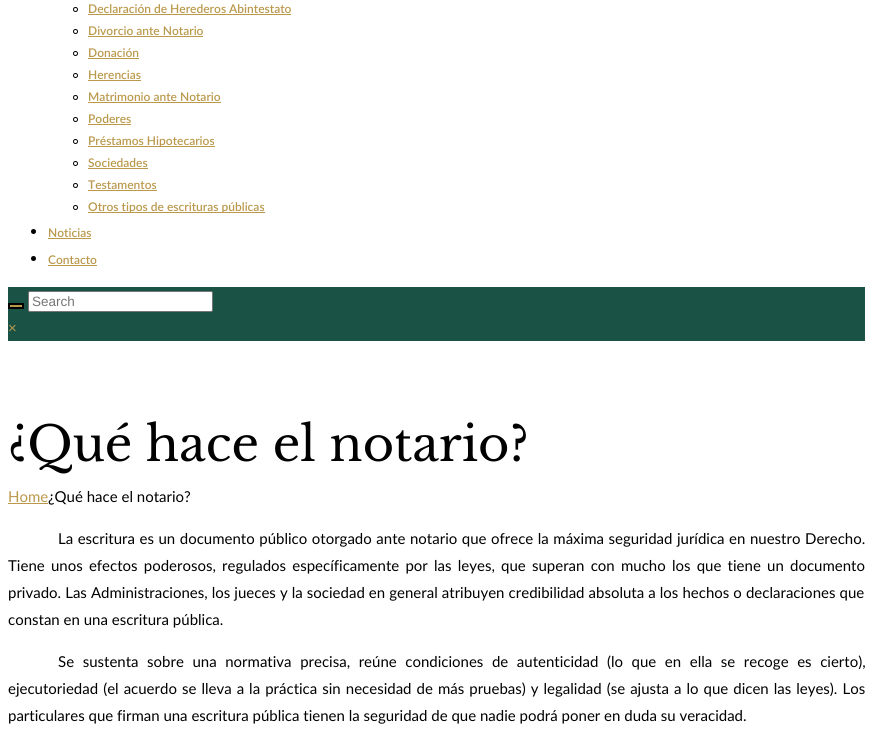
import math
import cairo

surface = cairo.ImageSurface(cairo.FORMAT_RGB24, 873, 735)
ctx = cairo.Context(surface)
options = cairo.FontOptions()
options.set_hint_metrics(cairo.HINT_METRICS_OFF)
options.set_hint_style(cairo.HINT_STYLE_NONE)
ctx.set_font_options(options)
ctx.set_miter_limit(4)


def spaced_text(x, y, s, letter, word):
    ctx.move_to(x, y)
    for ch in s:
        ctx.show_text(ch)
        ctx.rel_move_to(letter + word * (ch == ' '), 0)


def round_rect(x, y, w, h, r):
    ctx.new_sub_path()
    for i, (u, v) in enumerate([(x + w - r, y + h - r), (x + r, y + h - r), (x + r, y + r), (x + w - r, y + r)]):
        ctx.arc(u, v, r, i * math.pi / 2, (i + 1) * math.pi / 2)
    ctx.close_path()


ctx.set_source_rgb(1, 1, 1)
ctx.paint()
ctx.arc(75.5, 9.5, 2, 0, 2 * math.pi)
ctx.set_source_rgb(0, 0, 0)
ctx.set_line_width(1)
ctx.stroke()
ctx.select_font_face("Lato SemiBold")
ctx.set_font_size(12)
ctx.set_source_rgb(0.729, 0.6, 0.298)
ctx.move_to(88, 13)
ctx.show_text("Declaración de Herederos Abintestato")
ctx.rectangle(88, 14, 203, 1)
ctx.fill()
ctx.arc(75.5, 31.5, 2, 0, 2 * math.pi)
ctx.set_source_rgb(0, 0, 0)
ctx.stroke()
ctx.set_source_rgb(0.729, 0.6, 0.298)
ctx.move_to(88, 35)
ctx.show_text("Divorcio ante Notario")
ctx.rectangle(88, 36, 115, 1)
ctx.fill()
ctx.arc(75.5, 53.5, 2, 0, 2 * math.pi)
ctx.set_source_rgb(0, 0, 0)
ctx.stroke()
ctx.set_source_rgb(0.729, 0.6, 0.298)
ctx.move_to(88, 57)
ctx.show_text("Donación")
ctx.rectangle(88, 58, 51, 1)
ctx.fill()
ctx.arc(75.5, 75.5, 2, 0, 2 * math.pi)
ctx.set_source_rgb(0, 0, 0)
ctx.stroke()
ctx.set_source_rgb(0.729, 0.6, 0.298)
ctx.move_to(88, 79)
ctx.show_text("Herencias")
ctx.rectangle(88, 80, 53, 1)
ctx.fill()
ctx.arc(75.5, 97.5, 2, 0, 2 * math.pi)
ctx.set_source_rgb(0, 0, 0)
ctx.stroke()
ctx.set_source_rgb(0.729, 0.6, 0.298)
ctx.move_to(88, 101)
ctx.show_text("Matrimonio ante Notario")
ctx.rectangle(88, 102, 133, 1)
ctx.fill()
ctx.arc(75.5, 119.5, 2, 0, 2 * math.pi)
ctx.set_source_rgb(0, 0, 0)
ctx.stroke()
ctx.set_source_rgb(0.729, 0.6, 0.298)
ctx.move_to(88, 123)
ctx.show_text("Poderes")
ctx.rectangle(88, 124, 43, 1)
ctx.fill()
ctx.arc(75.5, 141.5, 2, 0, 2 * math.pi)
ctx.set_source_rgb(0, 0, 0)
ctx.stroke()
ctx.set_source_rgb(0.729, 0.6, 0.298)
ctx.rectangle(88, 146, 127, 1)
ctx.fill()
ctx.move_to(88, 145)
ctx.show_text("Préstamos Hipotecarios")
ctx.new_path()
ctx.arc(75.5, 163.5, 2, 0, 2 * math.pi)
ctx.set_source_rgb(0, 0, 0)
ctx.stroke()
ctx.set_source_rgb(0.729, 0.6, 0.298)
ctx.move_to(88, 167)
ctx.show_text("Sociedades")
ctx.rectangle(88, 168, 60, 1)
ctx.fill()
ctx.arc(75.5, 185.5, 2, 0, 2 * math.pi)
ctx.set_source_rgb(0, 0, 0)
ctx.stroke()
ctx.set_source_rgb(0.729, 0.6, 0.298)
ctx.move_to(88, 189)
ctx.show_text("Testamentos")
ctx.rectangle(88, 190, 69, 1)
ctx.fill()
ctx.arc(75.5, 207.5, 2, 0, 2 * math.pi)
ctx.set_source_rgb(0, 0, 0)
ctx.stroke()
ctx.set_source_rgb(0.729, 0.6, 0.298)
ctx.rectangle(88, 212, 177, 1)
ctx.fill()
ctx.move_to(88, 211)
ctx.show_text("Otros tipos de escrituras públicas")
ctx.set_source_rgb(0, 0, 0)
ctx.new_path()
ctx.arc(33.5, 231.5, 2.5, 0, 2 * math.pi)
ctx.fill()
ctx.set_source_rgb(0.729, 0.6, 0.298)
ctx.move_to(48, 237)
ctx.show_text("Noticias")
ctx.rectangle(48, 238, 43, 1)
ctx.fill()
ctx.set_source_rgb(0, 0, 0)
ctx.arc(33.5, 258.5, 2.5, 0, 2 * math.pi)
ctx.fill()
ctx.set_source_rgb(0.729, 0.6, 0.298)
ctx.move_to(48, 264)
ctx.show_text("Contacto")
ctx.rectangle(48, 265, 49, 1)
ctx.fill()
ctx.set_source_rgb(0.102, 0.322, 0.275)
ctx.rectangle(8, 287, 857, 54)
ctx.fill()
ctx.set_source_rgb(0.729, 0.6, 0.298)
ctx.rectangle(9, 304, 14, 4)
ctx.fill_preserve()
ctx.set_source_rgb(0, 0, 0)
ctx.set_line_width(2)
ctx.stroke()
ctx.set_source_rgb(1, 1, 1)
round_rect(28.5, 291.5, 184, 20, 1.5)
ctx.fill_preserve()
ctx.set_source_rgb(0.463, 0.463, 0.463)
ctx.set_line_width(1)
ctx.stroke()
ctx.select_font_face("Liberation Sans")
ctx.set_font_size(13.5)
ctx.set_source_rgb(0.459, 0.459, 0.459)
ctx.move_to(32, 306)
ctx.show_text("Search")
ctx.select_font_face("Lato")
ctx.set_font_size(15)
ctx.set_source_rgb(0.729, 0.6, 0.298)
ctx.move_to(8, 333)
ctx.show_text("×")
ctx.select_font_face("Libre Baskerville")
ctx.set_font_size(48)
ctx.set_source_rgb(0, 0, 0)
ctx.move_to(8, 461)
ctx.show_text("¿Qué hace el notario?")
ctx.select_font_face("Lato")
ctx.set_font_size(15)
ctx.set_source_rgb(0.729, 0.6, 0.298)
ctx.move_to(8, 502)
ctx.show_text("Home")
ctx.rectangle(8, 503, 40, 1)
ctx.fill()
ctx.set_source_rgb(0, 0, 0)
ctx.move_to(48, 502)
ctx.show_text("¿Qué hace el notario?")
spaced_text(58, 544, "La escritura es un documento público otorgado ante notario que ofrece la máxima seguridad jurídica en nuestro Derecho.", 0, 0.7)
spaced_text(8, 571, "Tiene unos efectos poderosos, regulados específicamente por las leyes, que superan con mucho los que tiene un documento", 0, 2.4)
spaced_text(8, 598, "privado. Las Administraciones, los jueces y la sociedad en general atribuyen credibilidad absoluta a los hechos o declaraciones que", 0, 0.25)
ctx.move_to(8, 625)
ctx.show_text("constan en una escritura pública.")
spaced_text(58, 667, "Se sustenta sobre una normativa precisa, reúne condiciones de autenticidad (lo que en ella se recoge es cierto),", 0, 4.75)
spaced_text(8, 694, "ejecutoriedad (el acuerdo se lleva a la práctica sin necesidad de más pruebas) y legalidad (se ajusta a lo que dicen las leyes). Los", 0, 1.2)
ctx.move_to(8, 721)
ctx.show_text("particulares que firman una escritura pública tienen la seguridad de que nadie podrá poner en duda su veracidad.")
surface.write_to_png("page.png")
